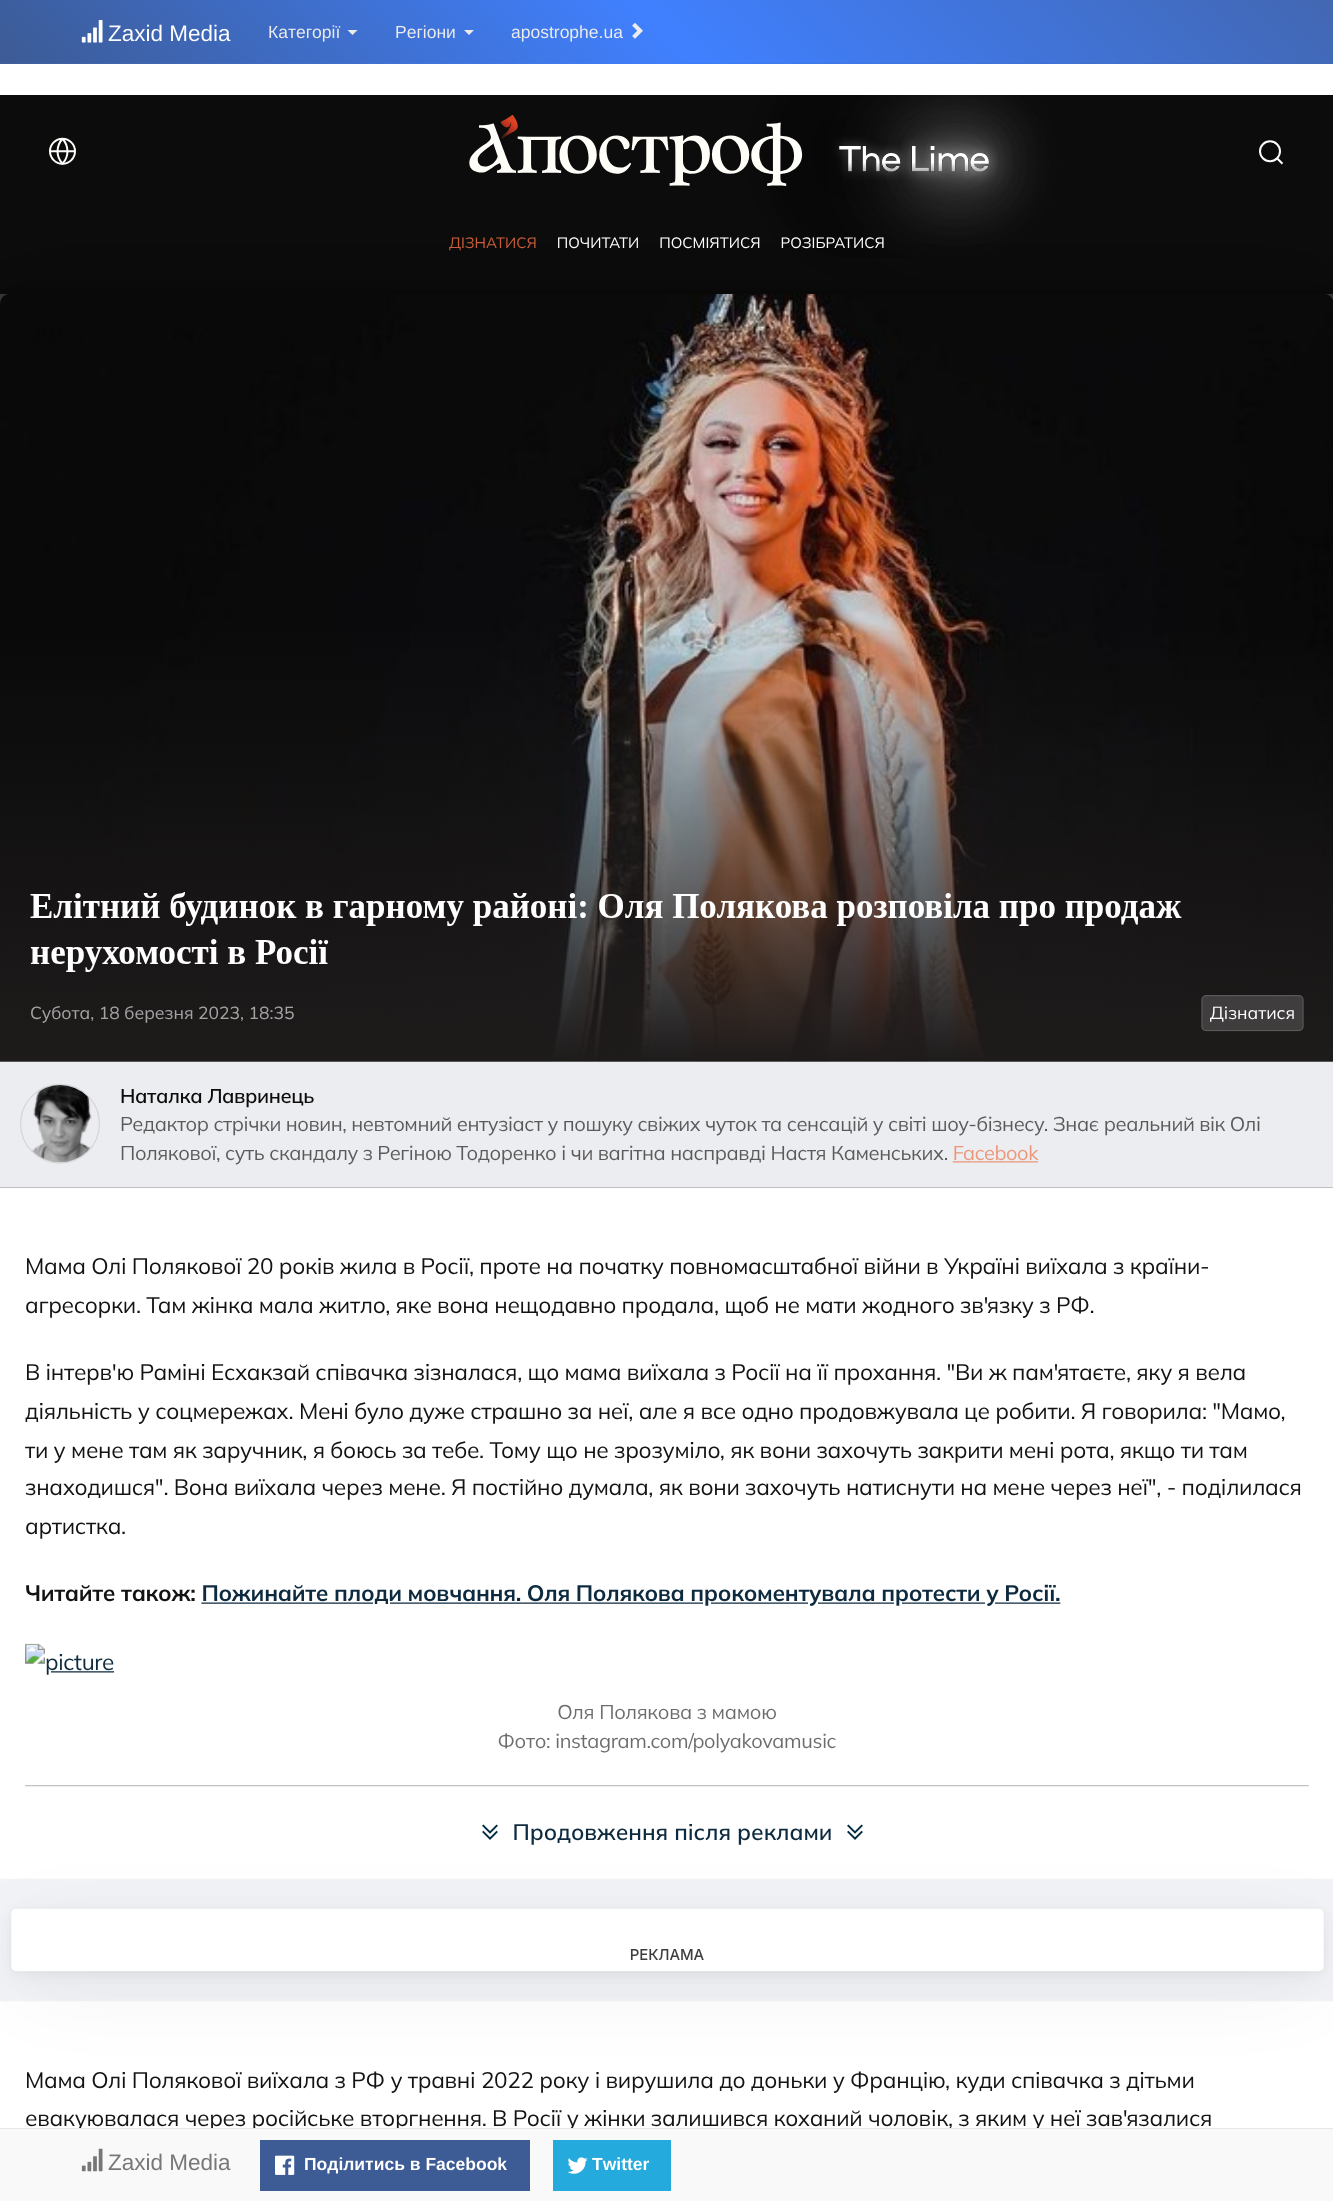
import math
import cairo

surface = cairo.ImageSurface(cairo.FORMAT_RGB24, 1333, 2201)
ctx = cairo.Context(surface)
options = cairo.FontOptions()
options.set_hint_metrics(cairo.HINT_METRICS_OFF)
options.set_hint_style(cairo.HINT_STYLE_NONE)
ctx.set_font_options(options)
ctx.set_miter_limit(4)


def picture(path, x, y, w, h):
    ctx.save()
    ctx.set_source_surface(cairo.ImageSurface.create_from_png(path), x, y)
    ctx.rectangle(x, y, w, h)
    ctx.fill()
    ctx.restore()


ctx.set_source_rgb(1, 1, 1)
ctx.paint()
gradient = cairo.LinearGradient(318, 380, 1016, -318)
gradient.add_color_stop_rgba(0, 0.239, 0.357, 0.584, 1)
gradient.add_color_stop_rgba(0.5, 0.251, 0.502, 1, 1)
gradient.add_color_stop_rgba(1, 0.259, 0.404, 0.698, 1)
ctx.set_source(gradient)
ctx.rectangle(0, 0, 1333, 63)
ctx.fill()
gradient = cairo.LinearGradient(318, 443, 1016, -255)
gradient.add_color_stop_rgba(0, 0.239, 0.361, 0.588, 1)
gradient.add_color_stop_rgba(0.5, 0.251, 0.498, 0.984, 1)
gradient.add_color_stop_rgba(1, 0.259, 0.404, 0.698, 1)
ctx.set_source(gradient)
ctx.rectangle(0, 63, 1333, 1)
ctx.fill()
picture("img1.png", 81, 20, 22, 23)
ctx.select_font_face("Liberation Sans")
ctx.set_font_size(22.5)
ctx.set_source_rgb(1, 1, 1)
ctx.move_to(108, 41)
ctx.show_text("Zaxid Media")
ctx.set_font_size(17.5)
ctx.set_source_rgb(0.925, 0.925, 0.925)
ctx.move_to(268, 38)
ctx.show_text("Категорії")
ctx.new_path()
ctx.move_to(347.5, 30)
ctx.line_to(357.5, 30)
ctx.line_to(352.5, 35)
ctx.close_path()
ctx.fill()
ctx.move_to(395, 38)
ctx.show_text("Регіони")
ctx.new_path()
ctx.move_to(464, 30)
ctx.line_to(474, 30)
ctx.line_to(469, 35)
ctx.close_path()
ctx.fill()
ctx.move_to(511, 38)
ctx.show_text("apostrophe.ua")
picture("img2.png", 632, 22, 11, 17)
picture("img3.png", 0, 95, 1333, 2033)
ctx.set_source_rgb(0.973, 0.973, 0.973)
ctx.rectangle(0, 2129, 1333, 72)
ctx.fill()
ctx.set_source_rgb(0.906, 0.906, 0.906)
ctx.rectangle(0, 2128, 1333, 1)
ctx.fill()
picture("img4.png", 81, 2148, 22, 24)
ctx.set_font_size(22.5)
ctx.set_source_rgb(0.467, 0.467, 0.467)
ctx.move_to(108, 2170)
ctx.show_text("Zaxid Media")
ctx.set_source_rgb(0.239, 0.357, 0.584)
ctx.rectangle(260, 2140, 270, 51)
ctx.fill()
picture("img5.png", 275, 2155, 20, 20)
ctx.select_font_face("Liberation Sans", cairo.FONT_SLANT_NORMAL, cairo.FONT_WEIGHT_BOLD)
ctx.set_font_size(17.5)
ctx.set_source_rgb(1, 1, 1)
ctx.move_to(304, 2170)
ctx.show_text("Поділитись в Facebook")
ctx.set_source_rgb(0.141, 0.667, 0.867)
ctx.rectangle(553, 2140, 118, 51)
ctx.fill()
picture("img6.png", 567, 2157, 21, 17)
ctx.set_source_rgb(1, 1, 1)
ctx.move_to(592, 2170)
ctx.show_text("Twitter")
surface.write_to_png("page.png")
